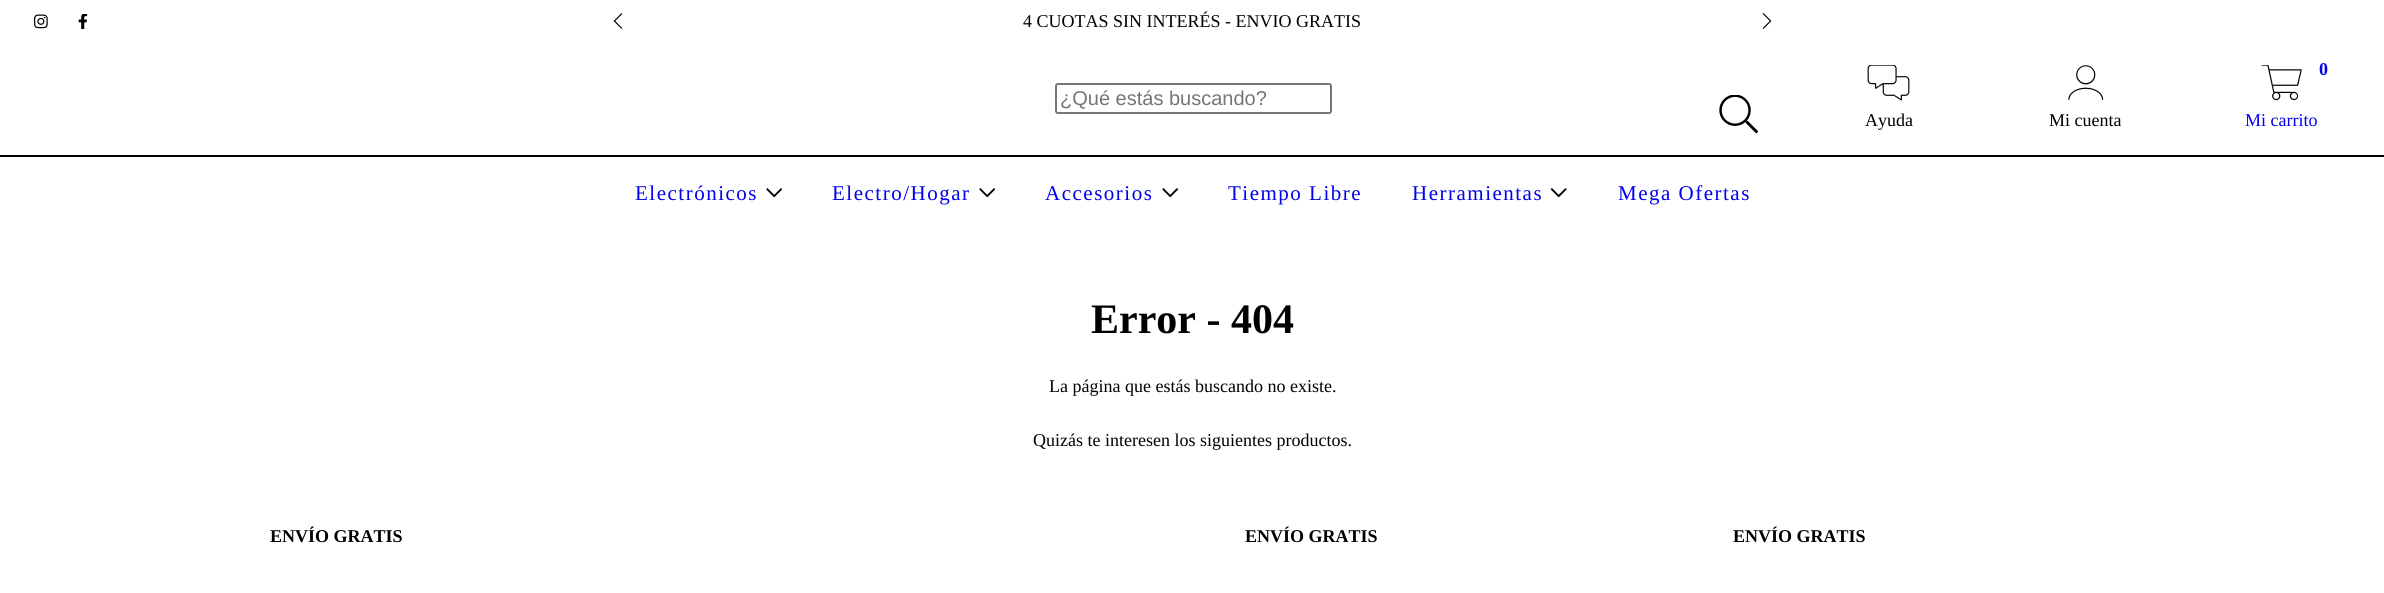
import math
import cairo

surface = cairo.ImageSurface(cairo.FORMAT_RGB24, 2384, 593)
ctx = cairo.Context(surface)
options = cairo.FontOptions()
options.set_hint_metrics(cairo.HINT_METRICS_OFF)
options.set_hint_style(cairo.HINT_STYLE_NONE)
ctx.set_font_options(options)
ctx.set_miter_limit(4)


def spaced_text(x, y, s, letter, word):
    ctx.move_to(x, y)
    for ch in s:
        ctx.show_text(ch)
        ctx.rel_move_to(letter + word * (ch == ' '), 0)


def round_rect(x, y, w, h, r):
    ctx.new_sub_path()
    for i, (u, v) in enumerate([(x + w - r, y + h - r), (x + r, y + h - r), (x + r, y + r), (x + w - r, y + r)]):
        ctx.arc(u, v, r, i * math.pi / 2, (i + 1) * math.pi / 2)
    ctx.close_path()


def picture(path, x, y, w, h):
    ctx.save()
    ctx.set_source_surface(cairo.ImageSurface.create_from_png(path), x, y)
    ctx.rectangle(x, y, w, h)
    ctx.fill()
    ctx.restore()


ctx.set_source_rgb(1, 1, 1)
ctx.paint()
picture("img1.png", 34, 14, 14, 15)
picture("img2.png", 78, 14, 10, 15)
picture("img3.png", 613, 13, 10, 16)
ctx.select_font_face("Liberation Serif")
ctx.set_font_size(18)
ctx.set_source_rgb(0, 0, 0)
ctx.move_to(1023, 27)
ctx.show_text("4 CUOTAS SIN INTERÉS - ENVIO GRATIS")
picture("img4.png", 1762, 13, 10, 16)
round_rect(1056, 84, 275, 29, 2)
ctx.set_source_rgb(0.463, 0.463, 0.463)
ctx.stroke()
ctx.select_font_face("Liberation Sans")
ctx.set_font_size(20)
ctx.set_source_rgb(0.459, 0.459, 0.459)
ctx.move_to(1060, 105)
ctx.show_text("¿Qué estás buscando?")
picture("img5.png", 1719, 95, 39, 39)
picture("img6.png", 1867, 65, 43, 36)
ctx.select_font_face("Liberation Serif")
ctx.set_font_size(18)
ctx.set_source_rgb(0, 0, 0)
ctx.move_to(1865, 126)
ctx.show_text("Ayuda")
picture("img7.png", 2068, 65, 36, 35)
ctx.move_to(2049, 126)
ctx.show_text("Mi cuenta")
picture("img8.png", 2261, 65, 41, 36)
ctx.select_font_face("Liberation Serif", cairo.FONT_SLANT_NORMAL, cairo.FONT_WEIGHT_BOLD)
ctx.set_source_rgb(0, 0, 0.933)
ctx.move_to(2319, 75)
ctx.show_text("0")
ctx.select_font_face("Liberation Serif")
ctx.move_to(2245, 126)
ctx.show_text("Mi carrito")
ctx.set_source_rgb(0, 0, 0)
ctx.rectangle(0, 155, 2384, 2)
ctx.fill()
ctx.set_font_size(21)
ctx.set_source_rgb(0, 0, 0.933)
spaced_text(635, 200, "Electrónicos", 1.5, 0)
picture("img9.png", 766, 188, 17, 10)
spaced_text(832, 200, "Electro/Hogar", 1.5, 0)
picture("img9.png", 979, 188, 17, 10)
spaced_text(1045, 200, "Accesorios", 1.5, 0)
picture("img9.png", 1162, 188, 17, 10)
spaced_text(1228, 200, "Tiempo Libre", 1.5, 0)
spaced_text(1412, 200, "Herramientas", 1.5, 0)
picture("img10.png", 1550, 188, 17, 10)
spaced_text(1618, 200, "Mega Ofertas", 1.5, 0)
ctx.select_font_face("Liberation Serif", cairo.FONT_SLANT_NORMAL, cairo.FONT_WEIGHT_BOLD)
ctx.set_font_size(42)
ctx.set_source_rgb(0, 0, 0)
ctx.move_to(1091, 333)
ctx.show_text("Error - 404")
ctx.select_font_face("Liberation Serif")
ctx.set_font_size(18)
ctx.move_to(1049, 392)
ctx.show_text("La página que estás buscando no existe.")
ctx.move_to(1033, 446)
ctx.show_text("Quizás te interesen los siguientes productos.")
ctx.select_font_face("Liberation Serif", cairo.FONT_SLANT_NORMAL, cairo.FONT_WEIGHT_BOLD)
ctx.move_to(270, 542)
ctx.show_text("ENVÍO GRATIS")
ctx.move_to(1245, 542)
ctx.show_text("ENVÍO GRATIS")
ctx.move_to(1733, 542)
ctx.show_text("ENVÍO GRATIS")
surface.write_to_png("page.png")
